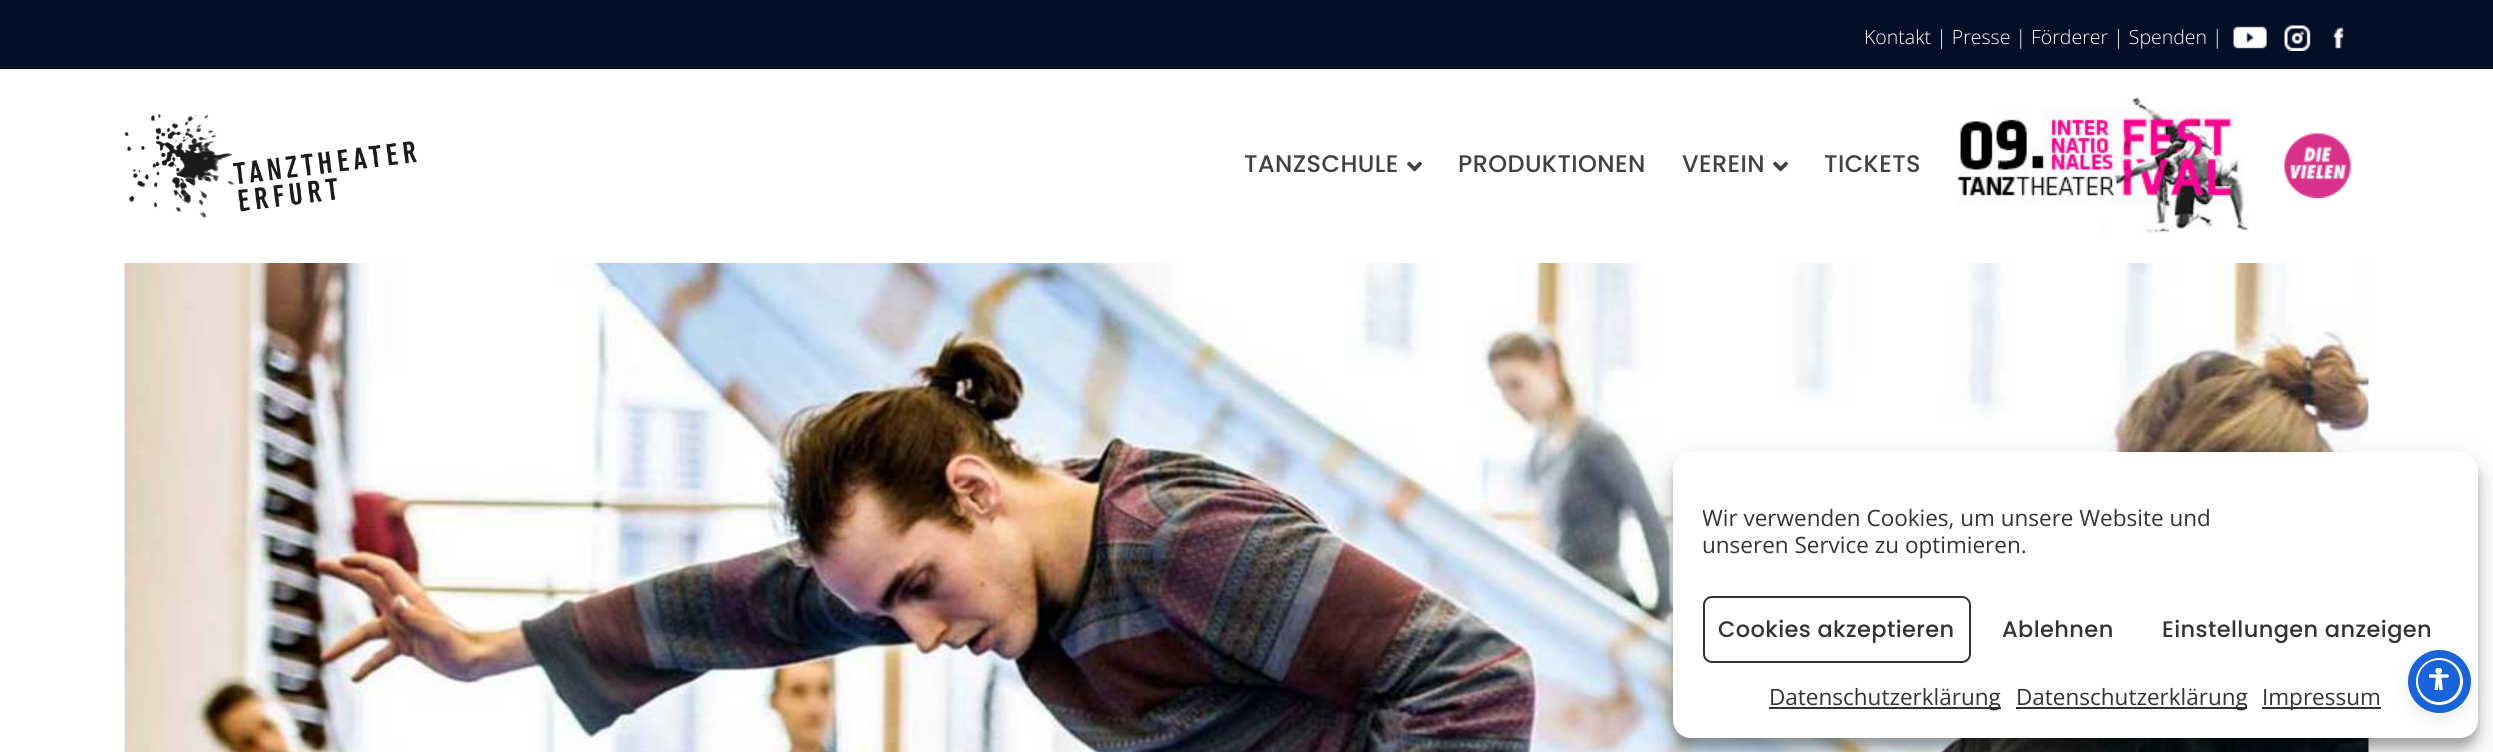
import math
import cairo

surface = cairo.ImageSurface(cairo.FORMAT_RGB24, 2493, 752)
ctx = cairo.Context(surface)
options = cairo.FontOptions()
options.set_hint_metrics(cairo.HINT_METRICS_OFF)
options.set_hint_style(cairo.HINT_STYLE_NONE)
ctx.set_font_options(options)
ctx.set_miter_limit(4)


def spaced_text(x, y, s, letter, word):
    ctx.move_to(x, y)
    for ch in s:
        ctx.show_text(ch)
        ctx.rel_move_to(letter + word * (ch == ' '), 0)


def round_rect(x, y, w, h, r):
    ctx.new_sub_path()
    for i, (u, v) in enumerate([(x + w - r, y + h - r), (x + r, y + h - r), (x + r, y + r), (x + w - r, y + r)]):
        ctx.arc(u, v, r, i * math.pi / 2, (i + 1) * math.pi / 2)
    ctx.close_path()


def shadow(x, y, w, h, r, blur, alpha):
    ctx.push_group_with_content(cairo.CONTENT_ALPHA)
    ctx.set_operator(cairo.OPERATOR_SOURCE)
    for i in range(15, -16, -2):
        e = blur * i / 6
        if min(w, h) + 2 * e > 0:
            ctx.set_source_rgba(0, 0, 0, alpha * math.erfc((i - 1) / 8.5) / 2)
            round_rect(x - e, y - e, w + 2 * e, h + 2 * e, max(0, min(r + e + blur * .6, min(w, h) / 2 + e)))
            ctx.fill()
    ctx.mask(ctx.pop_group())


def picture(path, x, y, w, h):
    ctx.save()
    ctx.set_source_surface(cairo.ImageSurface.create_from_png(path), x, y)
    ctx.rectangle(x, y, w, h)
    ctx.fill()
    ctx.restore()


ctx.set_source_rgb(1, 1, 1)
ctx.paint()
ctx.set_source_rgb(0.012, 0.059, 0.153)
ctx.rectangle(0, 0, 2493, 69)
ctx.fill()
ctx.select_font_face("Open Sans Light")
ctx.set_font_size(19.5)
ctx.set_source_rgb(1, 1, 1)
ctx.move_to(1864, 44)
ctx.show_text("Kontakt | Presse | Förderer | Spenden |")
picture("img1.png", 2233, 26, 34, 23)
picture("img2.png", 2284, 25, 27, 26)
picture("img3.png", 2333, 26, 11, 23)
picture("img4.png", 124, 114, 293, 104)
ctx.select_font_face("Poppins Medium")
ctx.set_font_size(24)
ctx.set_source_rgb(0.255, 0.251, 0.259)
spaced_text(1244, 172, "TANZSCHULE", 0.4, 0)
picture("img5.png", 1407, 161, 15, 11)
spaced_text(1458, 172, "PRODUKTIONEN", 0.4, 0)
spaced_text(1682, 172, "VEREIN", 0.4, 0)
picture("img5.png", 1773, 161, 15, 11)
spaced_text(1824, 172, "TICKETS", 0.4, 0)
picture("img6.png", 1957, 97, 292, 136)
picture("img7.png", 2284, 133, 67, 65)
picture("img8.png", 124, 263, 2245, 489)
ctx.set_source_rgb(0, 0, 0)
shadow(1673, 461, 805, 286, 18, 4.5, 0.23)
shadow(1673, 467, 805, 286, 18, 15, 0.19)
ctx.set_source_rgb(1, 1, 1)
round_rect(1673, 452, 805, 286, 18)
ctx.fill()
ctx.save()
ctx.rectangle(1703, 504, 745, 62)
ctx.clip()
ctx.select_font_face("Open Sans")
ctx.set_font_size(22.5)
ctx.set_source_rgb(0.2, 0.2, 0.2)
ctx.move_to(1702, 526)
ctx.show_text("Wir verwenden Cookies, um unsere Website und")
ctx.restore()
ctx.select_font_face("Open Sans")
ctx.set_font_size(22.5)
ctx.set_source_rgb(0.2, 0.2, 0.2)
ctx.move_to(1702, 553)
ctx.show_text("unseren Service zu optimieren.")
round_rect(1704, 597, 266, 65, 8)
ctx.stroke()
ctx.select_font_face("Poppins Medium")
spaced_text(1718, 637, "Cookies akzeptieren", 0.4, 0)
spaced_text(2002, 637, "Ablehnen", 0.4, 0)
spaced_text(2162, 637, "Einstellungen anzeigen", 0.4, 0)
ctx.rectangle(1769, 707, 232, 2)
ctx.fill()
ctx.select_font_face("Open Sans")
ctx.move_to(1769, 705)
ctx.show_text("Datenschutzerklärung")
ctx.rectangle(2016, 707, 231, 2)
ctx.fill()
ctx.move_to(2016, 705)
ctx.show_text("Datenschutzerklärung")
ctx.rectangle(2262, 707, 119, 2)
ctx.fill()
ctx.move_to(2262, 705)
ctx.show_text("Impressum")
ctx.set_source_rgb(0.365, 0.392, 0.58)
shadow(2415, 660, 48, 48, 24, 3, 0.2)
ctx.set_source_rgb(0.145, 0.173, 0.38)
shadow(2415, 665, 48, 48, 24, 11, 0.15)
ctx.set_source_rgb(0.094, 0.388, 0.863)
ctx.arc(2439, 681, 22.5, 0, 2 * math.pi)
ctx.fill_preserve()
ctx.set_source_rgb(1, 1, 1)
ctx.set_line_width(3)
ctx.stroke()
ctx.arc(2439.5, 681.5, 27.5, 0, 2 * math.pi)
ctx.set_source_rgb(0.094, 0.388, 0.863)
ctx.set_line_width(8)
ctx.stroke()
picture("img9.png", 2429, 668, 20, 22)
surface.write_to_png("page.png")
